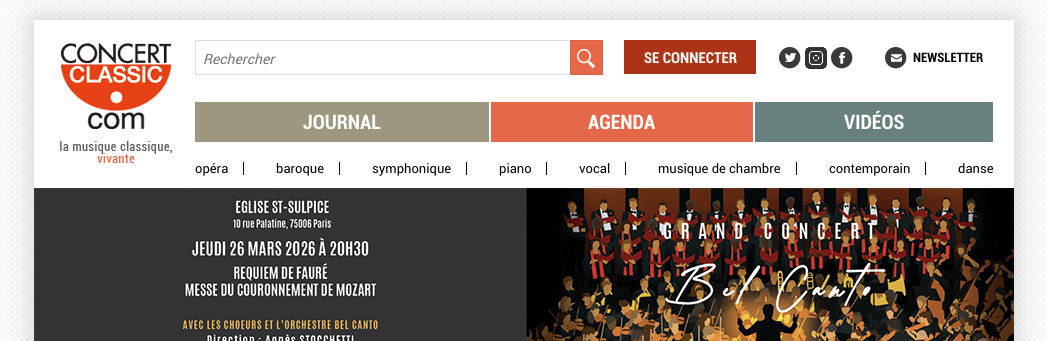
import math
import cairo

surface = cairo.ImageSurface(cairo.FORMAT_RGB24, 1047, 341)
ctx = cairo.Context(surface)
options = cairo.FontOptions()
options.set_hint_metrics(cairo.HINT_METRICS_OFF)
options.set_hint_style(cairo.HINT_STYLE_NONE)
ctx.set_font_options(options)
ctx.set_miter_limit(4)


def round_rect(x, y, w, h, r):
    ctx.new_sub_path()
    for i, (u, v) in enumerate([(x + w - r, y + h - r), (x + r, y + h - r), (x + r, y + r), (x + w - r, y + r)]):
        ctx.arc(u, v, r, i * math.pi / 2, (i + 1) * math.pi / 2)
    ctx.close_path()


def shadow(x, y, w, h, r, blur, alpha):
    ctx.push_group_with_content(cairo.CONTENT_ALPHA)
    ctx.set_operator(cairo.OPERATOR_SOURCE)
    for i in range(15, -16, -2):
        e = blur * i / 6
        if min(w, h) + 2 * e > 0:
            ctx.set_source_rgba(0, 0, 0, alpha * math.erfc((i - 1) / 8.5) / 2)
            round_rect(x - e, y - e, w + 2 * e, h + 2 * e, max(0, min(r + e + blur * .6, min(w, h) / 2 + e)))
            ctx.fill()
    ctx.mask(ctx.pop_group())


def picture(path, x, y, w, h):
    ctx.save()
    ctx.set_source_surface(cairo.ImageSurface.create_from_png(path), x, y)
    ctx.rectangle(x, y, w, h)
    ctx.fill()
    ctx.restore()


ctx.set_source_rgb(1, 1, 1)
ctx.paint()
picture("img1.png", 0, 0, 1047, 341)
ctx.set_source_rgb(0.8, 0.8, 0.8)
shadow(34, 20, 980, 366, 0, 15, 1)
ctx.set_source_rgb(1, 1, 1)
ctx.rectangle(34, 20, 980, 168)
ctx.fill()
picture("img2.png", 55, 43, 117, 120)
ctx.rectangle(195.5, 40.5, 377, 34)
ctx.set_source_rgb(0.867, 0.867, 0.867)
ctx.set_line_width(1)
ctx.stroke()
ctx.select_font_face("Roboto", cairo.FONT_SLANT_ITALIC)
ctx.set_font_size(14)
ctx.set_source_rgb(0.459, 0.459, 0.459)
ctx.move_to(203, 64)
ctx.show_text("Rechercher")
ctx.set_source_rgb(0.898, 0.408, 0.282)
round_rect(570, 40, 33, 35, 1)
ctx.fill()
picture("img3.png", 577, 49, 18, 19)
round_rect(570.5, 40.5, 32, 34, 0.5)
ctx.set_source_rgb(0.831, 0.38, 0.263)
ctx.stroke()
ctx.set_source_rgb(0.671, 0.204, 0.086)
ctx.rectangle(624, 40, 132, 34)
ctx.fill()
ctx.select_font_face("Roboto", cairo.FONT_SLANT_NORMAL, cairo.FONT_WEIGHT_BOLD)
ctx.set_font_size(15)
ctx.set_source_rgb(1, 1, 1)
ctx.move_to(644, 63)
ctx.show_text("SE CONNECTER")
picture("img4.png", 779, 47, 22, 22)
picture("img5.png", 805, 47, 22, 22)
picture("img6.png", 831, 47, 22, 22)
picture("img7.png", 885, 47, 22, 22)
ctx.set_font_size(13)
ctx.set_source_rgb(0, 0, 0)
ctx.move_to(913, 62)
ctx.show_text("NEWSLETTER")
ctx.set_source_rgb(0.62, 0.592, 0.502)
ctx.rectangle(195, 102, 294, 40)
ctx.fill()
ctx.set_font_size(20)
ctx.set_source_rgb(1, 1, 1)
ctx.move_to(303, 129)
ctx.show_text("JOURNAL")
ctx.set_source_rgb(0.898, 0.408, 0.282)
ctx.rectangle(491, 102, 262, 40)
ctx.fill()
ctx.set_source_rgb(1, 1, 1)
ctx.move_to(588, 129)
ctx.show_text("AGENDA")
ctx.set_source_rgb(0.408, 0.506, 0.494)
ctx.rectangle(755, 102, 238, 40)
ctx.fill()
ctx.set_source_rgb(1, 1, 1)
ctx.move_to(844, 129)
ctx.show_text("VIDÉOS")
ctx.set_source_rgb(0, 0, 0)
ctx.rectangle(243, 162, 1, 13)
ctx.fill()
ctx.select_font_face("Roboto")
ctx.set_font_size(13)
ctx.move_to(195, 173)
ctx.show_text("opéra")
ctx.rectangle(339, 162, 1, 13)
ctx.fill()
ctx.move_to(276, 173)
ctx.show_text("baroque")
ctx.rectangle(466, 162, 1, 13)
ctx.fill()
ctx.move_to(372, 173)
ctx.show_text("symphonique")
ctx.rectangle(546, 162, 1, 13)
ctx.fill()
ctx.move_to(499, 173)
ctx.show_text("piano")
ctx.rectangle(625, 162, 1, 13)
ctx.fill()
ctx.move_to(579, 173)
ctx.show_text("vocal")
ctx.rectangle(796, 162, 1, 13)
ctx.fill()
ctx.move_to(658, 173)
ctx.show_text("musique de chambre")
ctx.rectangle(925, 162, 1, 13)
ctx.fill()
ctx.move_to(829, 173)
ctx.show_text("contemporain")
ctx.move_to(958, 173)
ctx.show_text("danse")
picture("img8.png", 34, 188, 980, 153)
surface.write_to_png("page.png")
